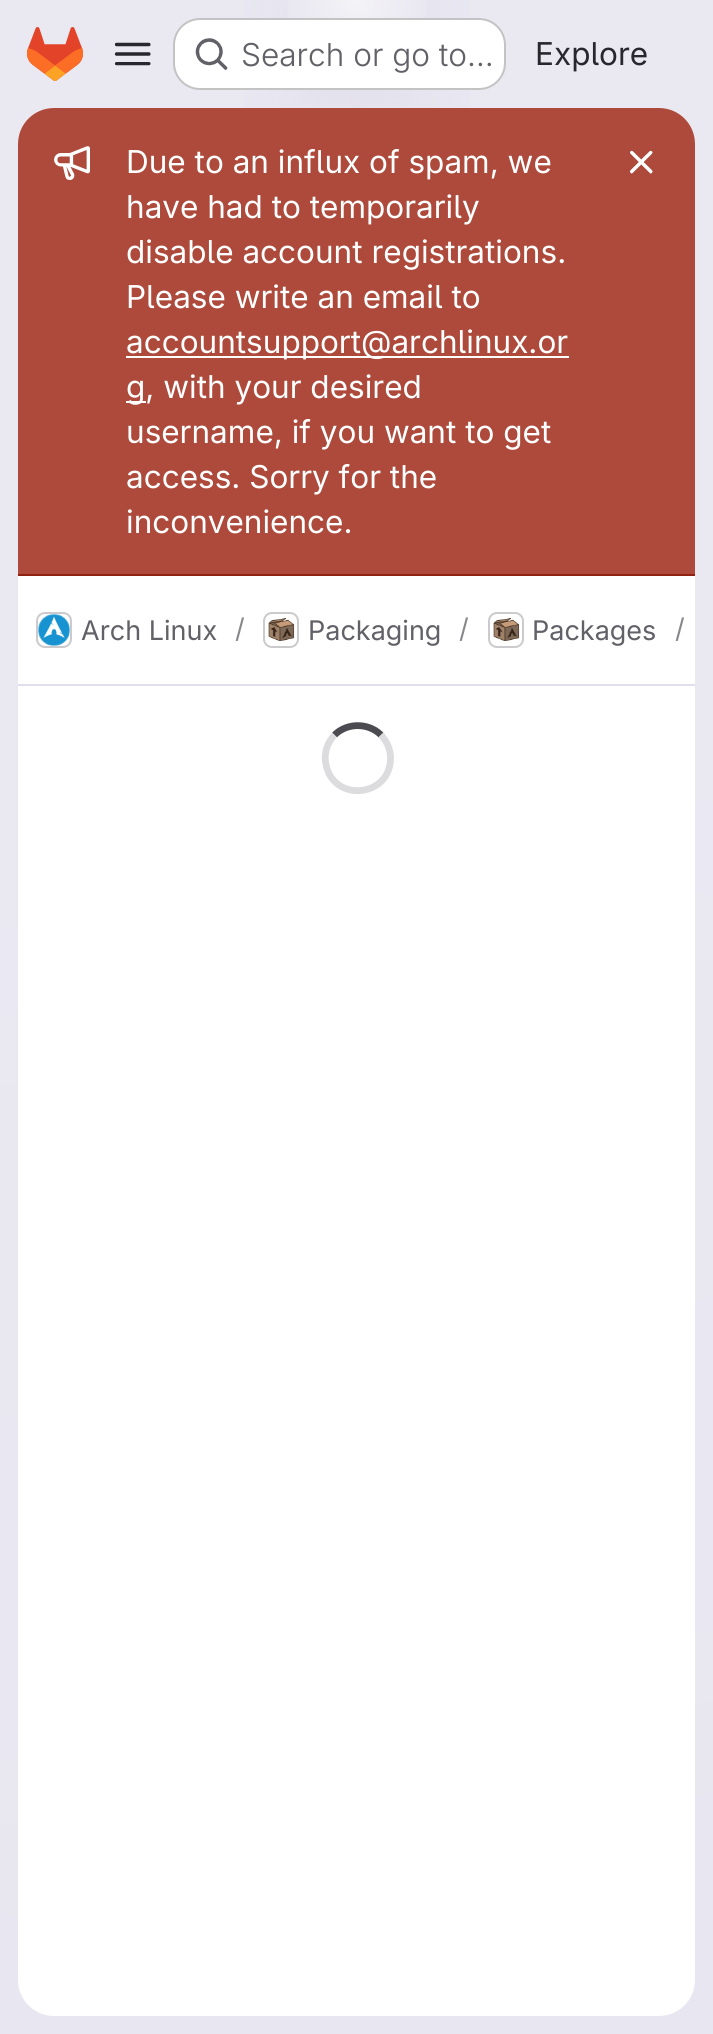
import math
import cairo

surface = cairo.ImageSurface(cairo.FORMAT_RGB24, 713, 2034)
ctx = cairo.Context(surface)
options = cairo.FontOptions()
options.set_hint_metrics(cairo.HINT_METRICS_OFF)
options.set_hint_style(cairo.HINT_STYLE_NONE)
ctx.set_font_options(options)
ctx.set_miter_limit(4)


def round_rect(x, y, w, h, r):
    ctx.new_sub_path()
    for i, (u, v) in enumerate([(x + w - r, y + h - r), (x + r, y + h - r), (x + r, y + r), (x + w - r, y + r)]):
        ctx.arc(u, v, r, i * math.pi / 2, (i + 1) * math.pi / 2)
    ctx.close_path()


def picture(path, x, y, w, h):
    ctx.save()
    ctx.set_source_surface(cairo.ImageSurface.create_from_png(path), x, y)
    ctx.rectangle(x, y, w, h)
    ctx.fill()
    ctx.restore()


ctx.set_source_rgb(1, 1, 1)
ctx.paint()
gradient = cairo.LinearGradient(541, 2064, 172, -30)
gradient.add_color_stop_rgba(0, 0.91, 0.902, 0.941, 1)
gradient.add_color_stop_rgba(0.7, 0.918, 0.914, 0.949, 1)
ctx.set_source(gradient)
ctx.rectangle(0, 0, 713, 2034)
ctx.fill()
gradient = cairo.RadialGradient(0, 0, 0, 0, 0, 1)
gradient.set_matrix(cairo.Matrix(1 / 357, 0, 0, 1 / 2034, -1 * 357 / 357, -1 * 0 / 2034))
gradient.add_color_stop_rgba(0, 0.894, 0.886, 0.929, 1)
gradient.add_color_stop_rgba(0.44, 0.894, 0.886, 0.929, 0)
ctx.set_source(gradient)
ctx.rectangle(244, 0, 226, 108)
ctx.fill()
gradient = cairo.RadialGradient(0, 0, 0, 0, 0, 1)
gradient.set_matrix(cairo.Matrix(1 / 357, 0, 0, 1 / 2034, -1 * 357 / 357, -1 * 0 / 2034))
gradient.add_color_stop_rgba(0, 0.894, 0.886, 0.925, 1)
gradient.add_color_stop_rgba(0.32, 0.894, 0.886, 0.925, 0)
ctx.set_source(gradient)
ctx.rectangle(303, 16, 108, 89)
ctx.fill()
gradient = cairo.RadialGradient(357, 0, 0, 357, 0, 2065)
gradient.add_color_stop_rgba(0, 1, 1, 1, 0.6)
gradient.add_color_stop_rgba(0.04, 1, 1, 1, 0)
ctx.set_source(gradient)
ctx.rectangle(288, 0, 138, 18)
ctx.fill()
picture("img1.png", 27, 27, 56, 54)
picture("img2.png", 114, 42, 37, 24)
ctx.set_source_rgb(1, 1, 1)
round_rect(173, 18, 333, 72, 27)
ctx.fill()
round_rect(174, 19, 331, 70, 26)
ctx.set_source_rgba(0.02, 0.02, 0.024, 0.24)
ctx.stroke()
picture("img3.png", 195, 38, 33, 32)
ctx.select_font_face("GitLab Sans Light")
ctx.set_font_size(31.5)
ctx.set_source_rgb(0.384, 0.38, 0.408)
ctx.move_to(241, 66)
ctx.show_text("Search or go to…")
ctx.select_font_face("GitLab Sans")
ctx.set_source_rgb(0.157, 0.153, 0.176)
ctx.move_to(535, 65)
ctx.show_text("Explore")
ctx.set_source_rgb(1, 1, 1)
round_rect(18, 108, 677, 1908, 36)
ctx.fill()
ctx.set_source_rgb(0.678, 0.29, 0.231)
ctx.new_path()
ctx.move_to(54, 108)
ctx.line_to(659, 108)
ctx.curve_to(679, 108, 695, 124, 695, 144)
ctx.line_to(695, 576)
ctx.line_to(18, 576)
ctx.line_to(18, 144)
ctx.curve_to(18, 124, 34, 108, 54, 108)
ctx.close_path()
ctx.fill()
ctx.set_source_rgb(0.561, 0.129, 0.063)
ctx.rectangle(18, 574, 677, 2)
ctx.fill()
picture("img4.png", 54, 146, 36, 34)
ctx.set_source_rgb(1, 1, 1)
ctx.move_to(126, 173)
ctx.show_text("Due to an influx of spam, we")
ctx.move_to(126, 218)
ctx.show_text("have had to temporarily")
ctx.move_to(126, 263)
ctx.show_text("disable account registrations.")
ctx.move_to(126, 308)
ctx.show_text("Please write an email to")
ctx.rectangle(126, 356, 443, 2)
ctx.fill()
ctx.move_to(126, 353)
ctx.show_text("accountsupport@archlinux.or")
ctx.rectangle(126, 401, 20, 2)
ctx.fill()
ctx.move_to(126, 398)
ctx.show_text("g, with your desired")
ctx.move_to(126, 443)
ctx.show_text("username, if you want to get")
ctx.move_to(126, 488)
ctx.show_text("access. Sorry for the")
ctx.move_to(126, 533)
ctx.show_text("inconvenience.")
picture("img5.png", 629, 150, 24, 24)
ctx.set_source_rgb(0.882, 0.875, 0.925)
ctx.rectangle(18, 684, 677, 2)
ctx.fill()
round_rect(37, 613, 34, 34, 8)
ctx.set_source_rgb(0.863, 0.863, 0.871)
ctx.stroke()
picture("img6.png", 38, 614, 32, 32)
round_rect(37, 613, 34, 34, 8)
ctx.set_source_rgba(0.02, 0.02, 0.024, 0.08)
ctx.stroke()
ctx.set_font_size(27)
ctx.set_source_rgb(0.384, 0.38, 0.408)
ctx.move_to(81, 640)
ctx.show_text("Arch Linux")
ctx.set_source_rgb(0.537, 0.533, 0.553)
ctx.move_to(235, 638)
ctx.show_text("/")
round_rect(264, 613, 34, 34, 8)
ctx.set_source_rgb(0.863, 0.863, 0.871)
ctx.stroke()
picture("img7.png", 268, 618, 27, 23)
round_rect(264, 613, 34, 34, 8)
ctx.set_source_rgba(0.02, 0.02, 0.024, 0.08)
ctx.stroke()
ctx.set_source_rgb(0.384, 0.38, 0.408)
ctx.move_to(308, 640)
ctx.show_text("Packaging")
ctx.set_source_rgb(0.537, 0.533, 0.553)
ctx.move_to(459, 638)
ctx.show_text("/")
round_rect(489, 613, 34, 34, 8)
ctx.set_source_rgb(0.863, 0.863, 0.871)
ctx.stroke()
picture("img8.png", 493, 618, 27, 23)
round_rect(489, 613, 34, 34, 8)
ctx.set_source_rgba(0.02, 0.02, 0.024, 0.08)
ctx.stroke()
ctx.set_source_rgb(0.384, 0.38, 0.408)
ctx.move_to(532, 640)
ctx.show_text("Packages")
ctx.set_source_rgb(0.537, 0.533, 0.553)
ctx.move_to(675, 638)
ctx.show_text("/")
ctx.new_path()
ctx.move_to(334.5, 735)
ctx.curve_to(347, 722.5, 368.5, 722.5, 381, 735)
ctx.set_source_rgb(0.298, 0.294, 0.318)
ctx.set_line_width(6.8)
ctx.stroke()
ctx.new_path()
ctx.move_to(381, 735)
ctx.curve_to(387, 741.5, 390.5, 749.5, 390.5, 758)
ctx.curve_to(390.5, 797.5, 333.5, 803, 326, 764.5)
ctx.curve_to(323.5, 754, 327, 743, 334.5, 735)
ctx.set_source_rgb(0.863, 0.863, 0.871)
ctx.stroke()
surface.write_to_png("page.png")
